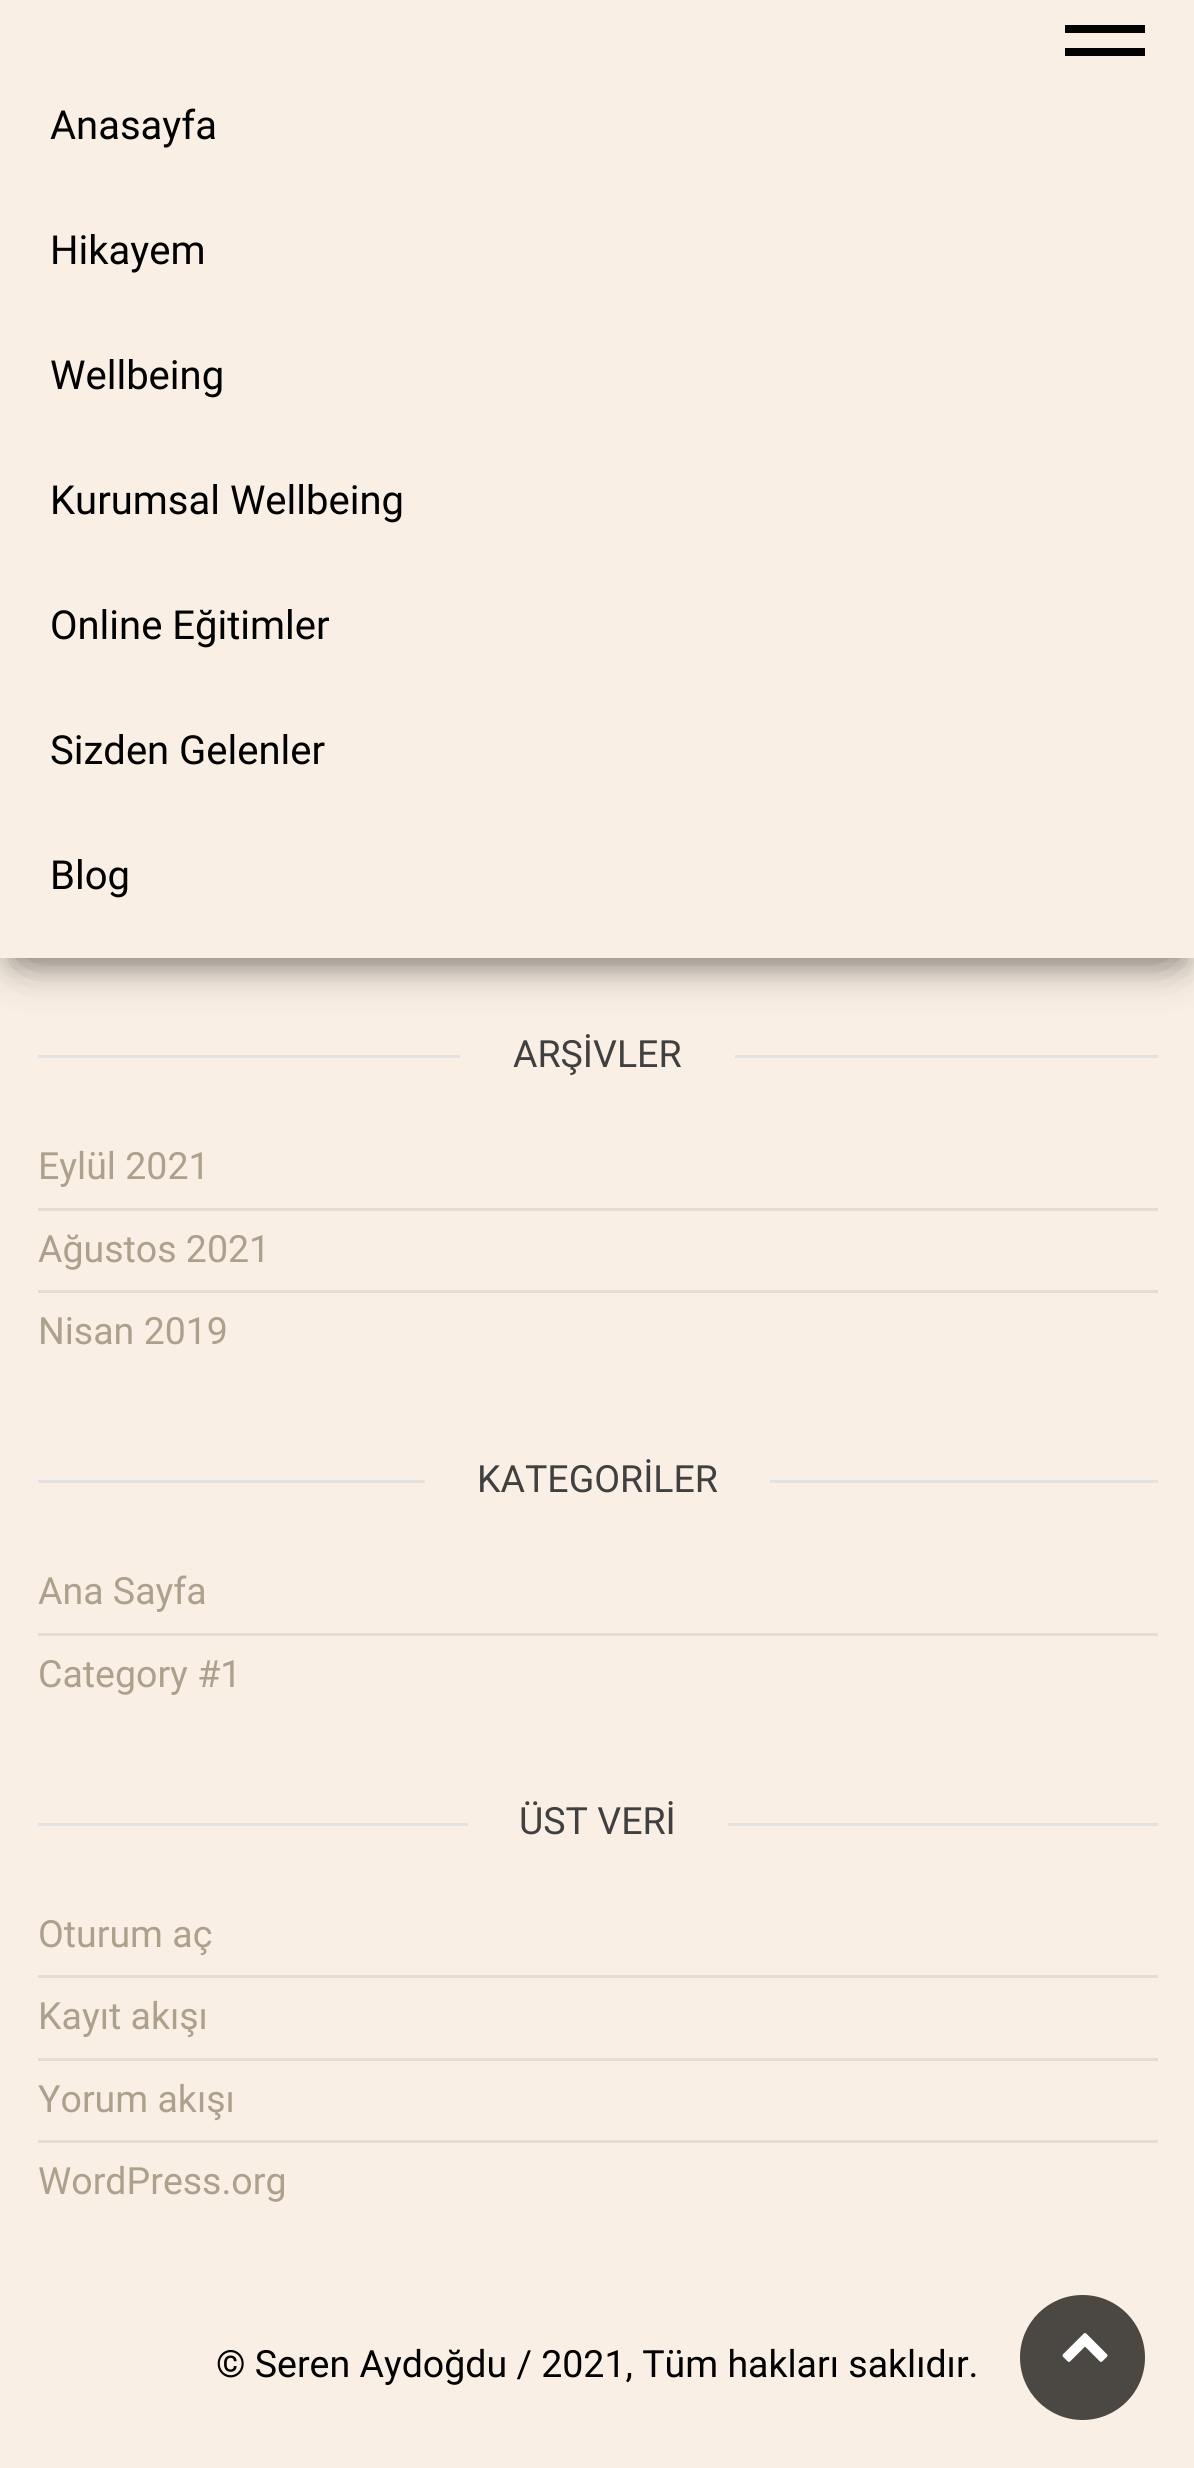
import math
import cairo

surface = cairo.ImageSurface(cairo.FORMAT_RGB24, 1194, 2468)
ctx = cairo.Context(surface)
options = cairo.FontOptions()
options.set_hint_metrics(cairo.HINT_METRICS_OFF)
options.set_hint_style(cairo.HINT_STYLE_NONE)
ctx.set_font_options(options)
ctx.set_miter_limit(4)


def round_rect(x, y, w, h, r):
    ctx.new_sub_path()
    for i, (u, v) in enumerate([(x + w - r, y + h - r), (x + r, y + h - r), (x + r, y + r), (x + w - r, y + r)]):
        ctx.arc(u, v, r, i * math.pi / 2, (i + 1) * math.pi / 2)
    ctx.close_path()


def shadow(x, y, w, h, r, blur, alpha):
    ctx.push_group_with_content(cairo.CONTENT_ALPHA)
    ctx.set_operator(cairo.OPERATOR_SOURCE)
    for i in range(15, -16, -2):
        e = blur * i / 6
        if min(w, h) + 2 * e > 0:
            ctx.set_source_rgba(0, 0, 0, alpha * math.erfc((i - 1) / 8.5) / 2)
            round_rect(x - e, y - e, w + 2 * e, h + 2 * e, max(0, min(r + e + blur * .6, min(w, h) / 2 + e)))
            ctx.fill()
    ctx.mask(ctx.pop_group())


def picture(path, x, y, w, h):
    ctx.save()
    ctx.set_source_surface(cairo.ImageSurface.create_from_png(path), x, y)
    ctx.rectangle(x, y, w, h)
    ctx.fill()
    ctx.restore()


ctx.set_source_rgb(0.976, 0.937, 0.894)
ctx.paint()
ctx.set_source_rgb(0, 0, 0)
shadow(13, 33, 1170, 932, 0, 12.5, 0.2)
shadow(0, 8, 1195, 957, 0, 25, 0.12)
shadow(30, 55, 1135, 898, 0, 25, 0.42)
ctx.set_source_rgb(0.976, 0.937, 0.894)
ctx.rectangle(0, 0, 1194, 958)
ctx.fill()
ctx.set_source_rgb(0.008, 0.008, 0.008)
ctx.rectangle(1065, 25, 80, 8)
ctx.fill()
ctx.rectangle(1065, 48, 80, 8)
ctx.fill()
ctx.select_font_face("Roboto")
ctx.set_font_size(40)
ctx.set_source_rgb(0, 0, 0)
ctx.move_to(50, 139)
ctx.show_text("Anasayfa")
ctx.move_to(50, 264)
ctx.show_text("Hikayem")
ctx.move_to(50, 389)
ctx.show_text("Wellbeing")
ctx.move_to(50, 514)
ctx.show_text("Kurumsal Wellbeing")
ctx.move_to(50, 639)
ctx.show_text("Online Eğitimler")
ctx.move_to(50, 764)
ctx.show_text("Sizden Gelenler")
ctx.move_to(50, 889)
ctx.show_text("Blog")
ctx.set_source_rgb(0.886, 0.886, 0.886)
ctx.rectangle(38, 1055, 1120, 3)
ctx.fill()
ctx.set_source_rgb(0.976, 0.937, 0.894)
ctx.rectangle(460, 1055, 275, 3)
ctx.fill()
ctx.set_font_size(37.5)
ctx.set_source_rgb(0.251, 0.251, 0.251)
ctx.move_to(513, 1067)
ctx.show_text("ARŞİVLER")
ctx.set_source_rgb(0.898, 0.863, 0.824)
ctx.rectangle(38, 1208, 1120, 3)
ctx.fill()
ctx.set_source_rgb(0.675, 0.631, 0.549)
ctx.move_to(38, 1179)
ctx.show_text("Eylül 2021")
ctx.set_source_rgb(0.898, 0.863, 0.824)
ctx.rectangle(38, 1290, 1120, 3)
ctx.fill()
ctx.set_source_rgb(0.675, 0.631, 0.549)
ctx.move_to(38, 1262)
ctx.show_text("Ağustos 2021")
ctx.move_to(38, 1344)
ctx.show_text("Nisan 2019")
ctx.set_source_rgb(0.886, 0.886, 0.886)
ctx.rectangle(38, 1480, 1120, 3)
ctx.fill()
ctx.set_source_rgb(0.976, 0.937, 0.894)
ctx.rectangle(425, 1480, 345, 3)
ctx.fill()
ctx.set_source_rgb(0.251, 0.251, 0.251)
ctx.move_to(477, 1492)
ctx.show_text("KATEGORİLER")
ctx.set_source_rgb(0.898, 0.863, 0.824)
ctx.rectangle(38, 1633, 1120, 3)
ctx.fill()
ctx.set_source_rgb(0.675, 0.631, 0.549)
ctx.move_to(38, 1604)
ctx.show_text("Ana Sayfa")
ctx.move_to(38, 1687)
ctx.show_text("Category #1")
ctx.set_source_rgb(0.886, 0.886, 0.886)
ctx.rectangle(38, 1823, 1120, 3)
ctx.fill()
ctx.set_source_rgb(0.976, 0.937, 0.894)
ctx.rectangle(468, 1823, 260, 3)
ctx.fill()
ctx.set_source_rgb(0.251, 0.251, 0.251)
ctx.move_to(519, 1834)
ctx.show_text("ÜST VERİ")
ctx.set_source_rgb(0.898, 0.863, 0.824)
ctx.rectangle(38, 1975, 1120, 3)
ctx.fill()
ctx.set_source_rgb(0.675, 0.631, 0.549)
ctx.move_to(38, 1947)
ctx.show_text("Oturum aç")
ctx.set_source_rgb(0.898, 0.863, 0.824)
ctx.rectangle(38, 2058, 1120, 3)
ctx.fill()
ctx.set_source_rgb(0.675, 0.631, 0.549)
ctx.move_to(38, 2029)
ctx.show_text("Kayıt akışı")
ctx.set_source_rgb(0.898, 0.863, 0.824)
ctx.rectangle(38, 2140, 1120, 3)
ctx.fill()
ctx.set_source_rgb(0.675, 0.631, 0.549)
ctx.move_to(38, 2112)
ctx.show_text("Yorum akışı")
ctx.move_to(38, 2194)
ctx.show_text("WordPress.org")
ctx.set_source_rgb(0, 0, 0)
ctx.move_to(216, 2377)
ctx.show_text("© Seren Aydoğdu / 2021, Tüm hakları saklıdır.")
ctx.set_source_rgb(0.294, 0.282, 0.267)
ctx.new_path()
ctx.arc(1082.5, 2357.5, 62.5, 0, 2 * math.pi)
ctx.fill()
picture("img1.png", 1062, 2333, 46, 29)
surface.write_to_png("page.png")
